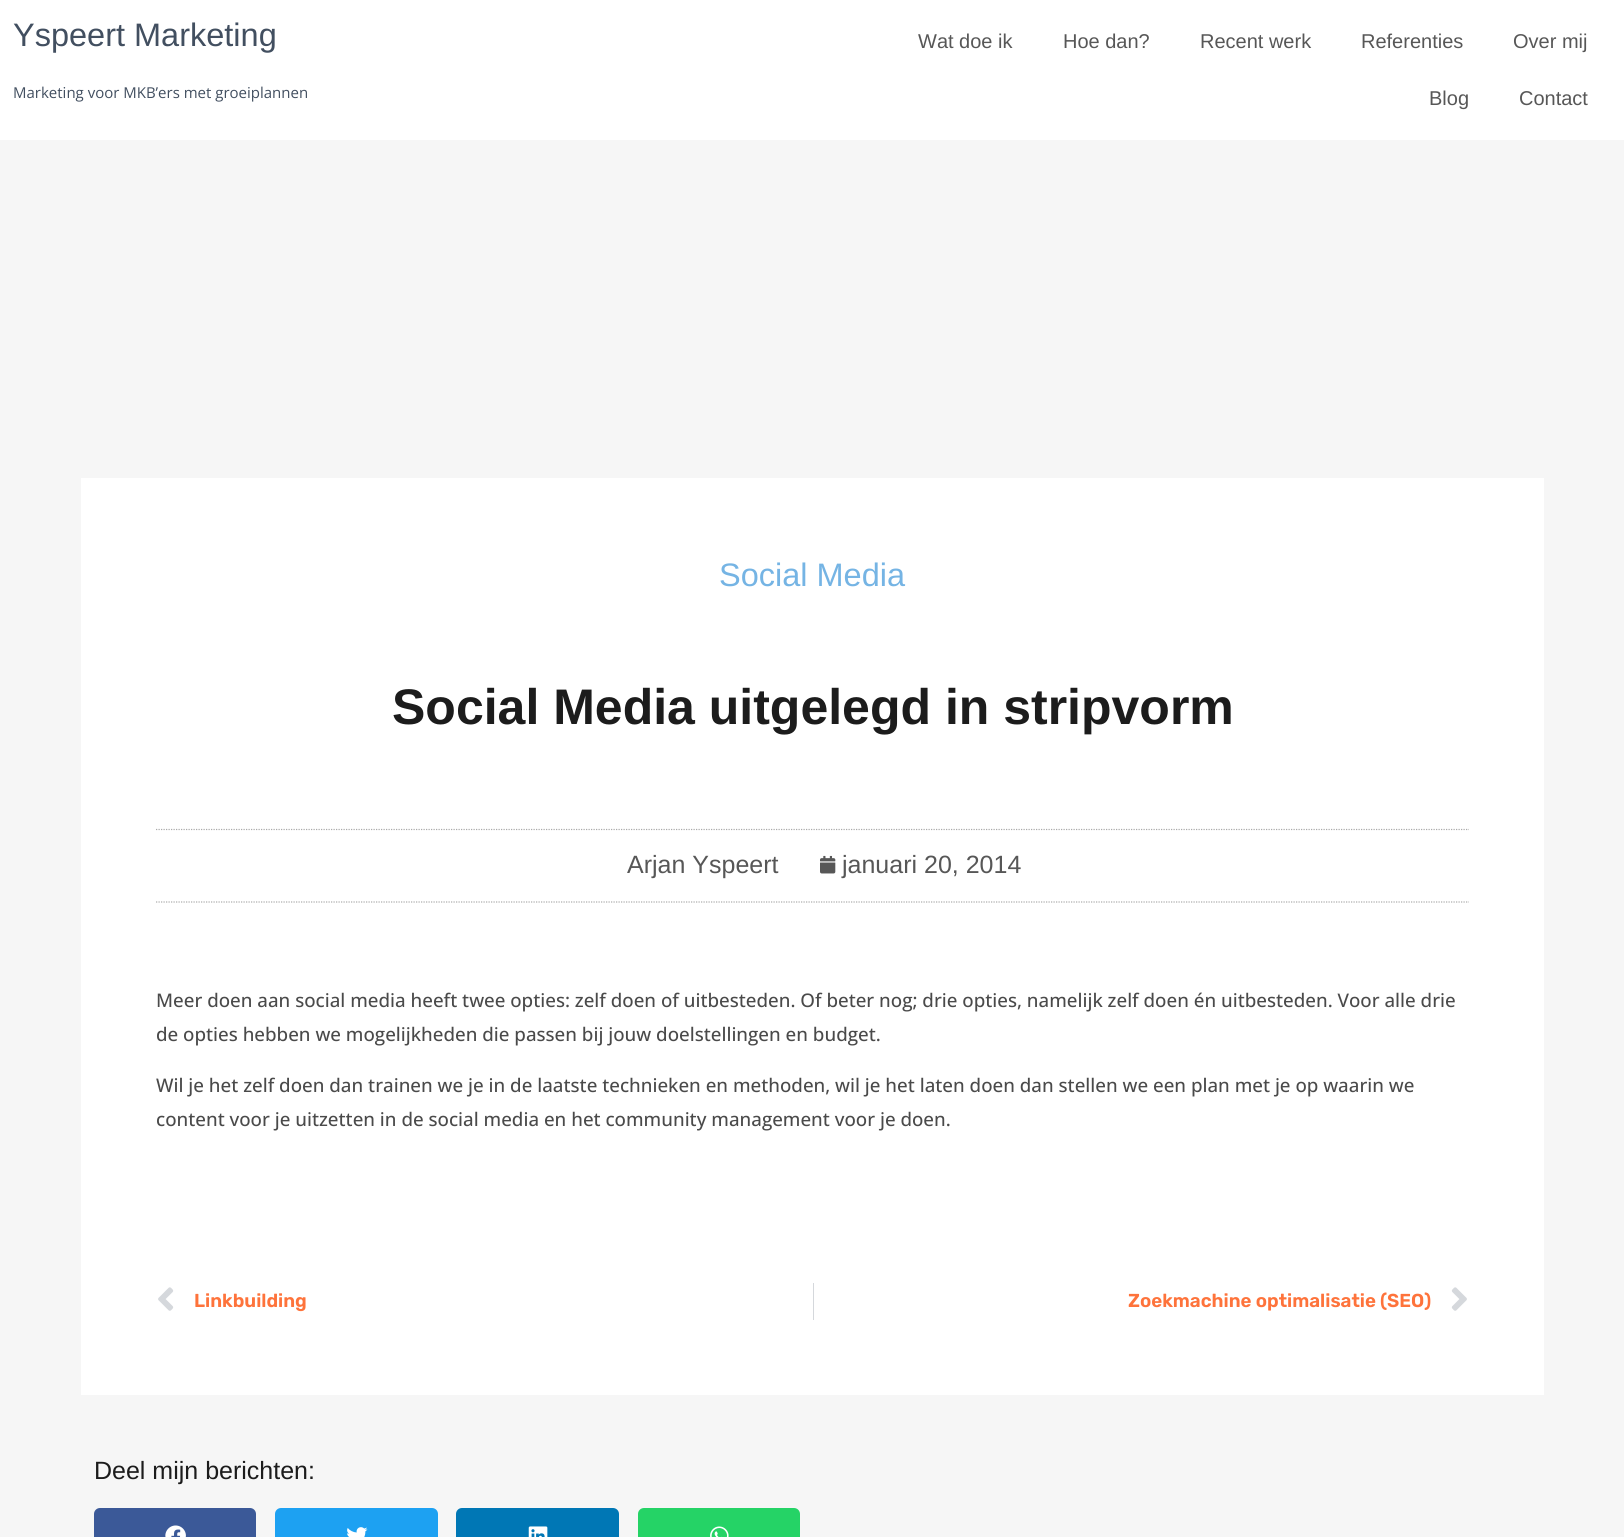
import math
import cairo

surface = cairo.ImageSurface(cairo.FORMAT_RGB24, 1624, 1537)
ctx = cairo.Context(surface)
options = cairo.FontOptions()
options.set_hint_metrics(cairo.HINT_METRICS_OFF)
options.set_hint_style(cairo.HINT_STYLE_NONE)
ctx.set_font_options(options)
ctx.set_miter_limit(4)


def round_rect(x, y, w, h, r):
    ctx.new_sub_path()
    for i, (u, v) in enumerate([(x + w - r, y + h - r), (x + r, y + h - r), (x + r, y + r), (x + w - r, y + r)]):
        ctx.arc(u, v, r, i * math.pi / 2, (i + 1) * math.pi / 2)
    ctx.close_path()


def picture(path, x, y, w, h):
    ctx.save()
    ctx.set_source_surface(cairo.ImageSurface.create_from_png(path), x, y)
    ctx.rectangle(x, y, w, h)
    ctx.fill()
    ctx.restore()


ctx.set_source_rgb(0.961, 0.961, 0.961)
ctx.paint()
ctx.set_source_rgb(1, 1, 1)
ctx.rectangle(0, 0, 1624, 140)
ctx.fill()
ctx.select_font_face("Liberation Sans")
ctx.set_font_size(32.5)
ctx.set_source_rgb(0.259, 0.31, 0.376)
ctx.move_to(13, 46)
ctx.show_text("Yspeert Marketing")
ctx.select_font_face("Open Sans")
ctx.set_font_size(15)
ctx.move_to(13, 98)
ctx.show_text("Marketing voor MKB’ers met groeiplannen")
ctx.select_font_face("Liberation Sans")
ctx.set_font_size(20)
ctx.set_source_rgb(0.341, 0.341, 0.341)
ctx.move_to(918, 48)
ctx.show_text("Wat doe ik")
ctx.move_to(1063, 48)
ctx.show_text("Hoe dan?")
ctx.move_to(1200, 48)
ctx.show_text("Recent werk")
ctx.move_to(1361, 48)
ctx.show_text("Referenties")
ctx.move_to(1513, 48)
ctx.show_text("Over mij")
ctx.move_to(1429, 105)
ctx.show_text("Blog")
ctx.move_to(1519, 105)
ctx.show_text("Contact")
ctx.set_source_rgb(1, 1, 1)
ctx.rectangle(81, 478, 1463, 917)
ctx.fill()
ctx.set_font_size(32.5)
ctx.set_source_rgb(0.459, 0.706, 0.894)
ctx.move_to(719, 586)
ctx.show_text("Social Media")
ctx.select_font_face("Liberation Sans", cairo.FONT_SLANT_NORMAL, cairo.FONT_WEIGHT_BOLD)
ctx.set_font_size(50)
ctx.set_source_rgb(0.11, 0.11, 0.11)
ctx.move_to(392, 724)
ctx.show_text("Social Media uitgelegd in stripvorm")
ctx.new_path()
ctx.move_to(156, 829.5)
ctx.line_to(1469, 829.5)
ctx.set_source_rgb(0.667, 0.667, 0.667)
ctx.set_line_width(1.2)
ctx.set_dash([1.25, 1.25])
ctx.stroke()
ctx.new_path()
ctx.move_to(156, 902)
ctx.line_to(1469, 902)
ctx.stroke()
ctx.select_font_face("Liberation Sans")
ctx.set_font_size(25)
ctx.set_source_rgb(0.341, 0.341, 0.341)
ctx.move_to(627, 873)
ctx.show_text("Arjan Yspeert")
picture("img1.png", 820, 855, 16, 19)
ctx.move_to(842, 873)
ctx.show_text("januari 20, 2014")
ctx.select_font_face("Open Sans Medium")
ctx.set_font_size(18.75)
ctx.set_source_rgb(0.29, 0.29, 0.29)
ctx.move_to(156, 1007)
ctx.show_text("Meer doen aan social media heeft twee opties: zelf doen of uitbesteden. Of beter nog; drie opties, namelijk zelf doen én uitbesteden. Voor alle drie")
ctx.move_to(156, 1041)
ctx.show_text("de opties hebben we mogelijkheden die passen bij jouw doelstellingen en budget.")
ctx.move_to(156, 1092)
ctx.show_text("Wil je het zelf doen dan trainen we je in de laatste technieken en methoden, wil je het laten doen dan stellen we een plan met je op waarin we")
ctx.move_to(156, 1126)
ctx.show_text("content voor je uitzetten in de social media en het community management voor je doen.")
picture("img2.png", 158, 1287, 16, 24)
ctx.select_font_face("Rubik SemiBold")
ctx.set_source_rgb(0.996, 0.451, 0.231)
ctx.move_to(194, 1307)
ctx.show_text("Linkbuilding")
ctx.set_source_rgb(0.835, 0.847, 0.863)
ctx.rectangle(813, 1283, 1, 37)
ctx.fill()
ctx.set_source_rgb(0.996, 0.451, 0.231)
ctx.move_to(1128, 1307)
ctx.show_text("Zoekmachine optimalisatie (SEO)")
picture("img3.png", 1451, 1287, 16, 24)
ctx.select_font_face("Liberation Sans")
ctx.set_font_size(25)
ctx.set_source_rgb(0.11, 0.11, 0.11)
ctx.move_to(94, 1479)
ctx.show_text("Deel mijn berichten:")
ctx.set_source_rgb(0.231, 0.349, 0.596)
round_rect(94, 1508, 162, 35, 6)
ctx.fill()
picture("img4.png", 165, 1525, 21, 12)
ctx.set_source_rgb(0.114, 0.631, 0.949)
round_rect(275, 1508, 163, 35, 6)
ctx.fill()
picture("img5.png", 347, 1527, 21, 10)
ctx.set_source_rgb(0, 0.467, 0.71)
round_rect(456, 1508, 163, 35, 6)
ctx.fill()
picture("img6.png", 528, 1526, 20, 11)
ctx.set_source_rgb(0.145, 0.827, 0.4)
round_rect(638, 1508, 162, 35, 6)
ctx.fill()
picture("img7.png", 710, 1526, 19, 11)
surface.write_to_png("page.png")
